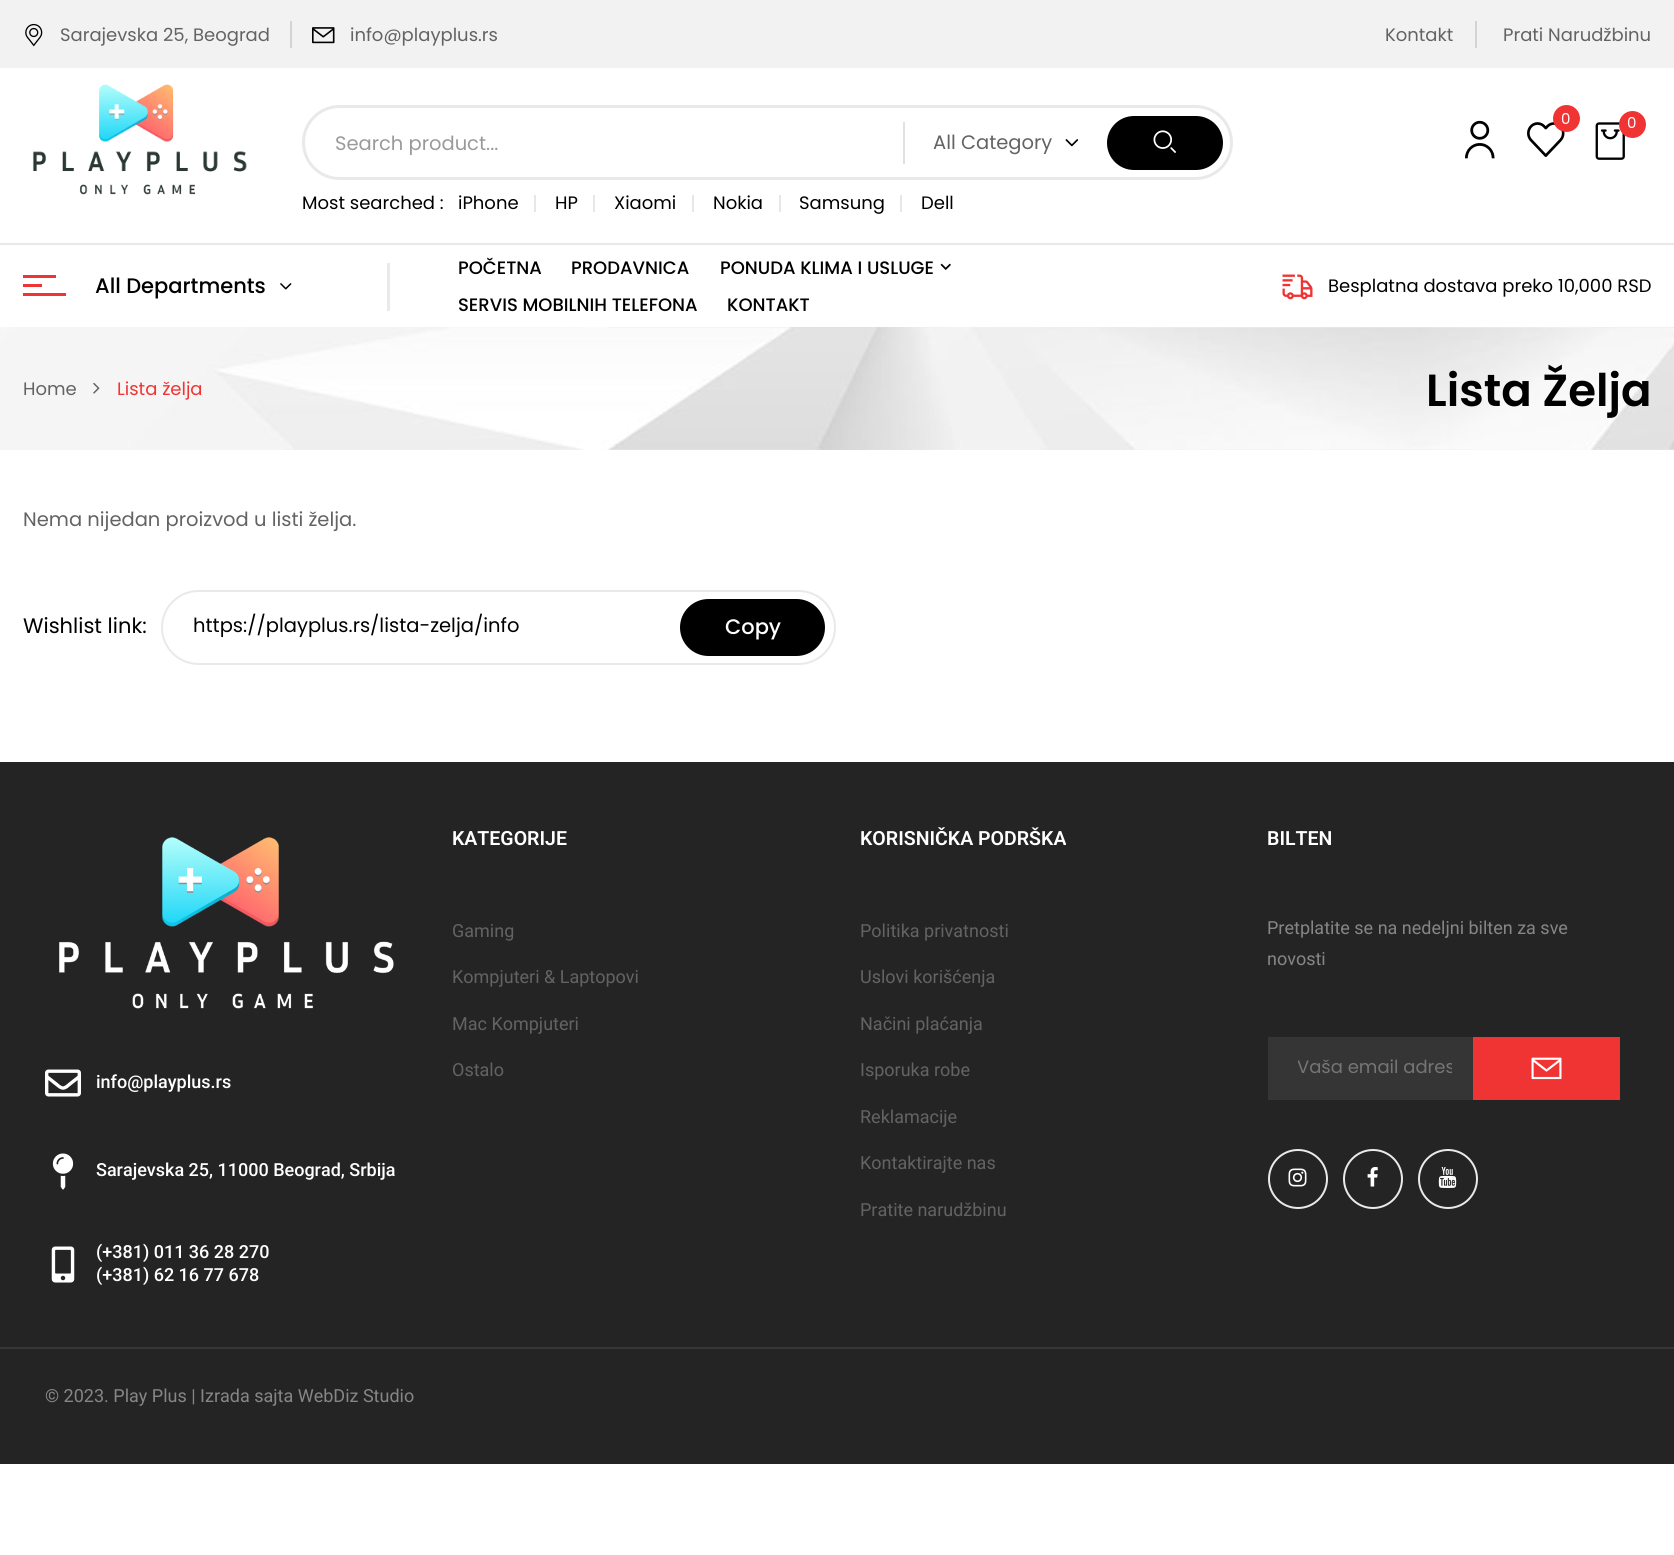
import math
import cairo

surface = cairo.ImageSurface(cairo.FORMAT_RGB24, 1674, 1555)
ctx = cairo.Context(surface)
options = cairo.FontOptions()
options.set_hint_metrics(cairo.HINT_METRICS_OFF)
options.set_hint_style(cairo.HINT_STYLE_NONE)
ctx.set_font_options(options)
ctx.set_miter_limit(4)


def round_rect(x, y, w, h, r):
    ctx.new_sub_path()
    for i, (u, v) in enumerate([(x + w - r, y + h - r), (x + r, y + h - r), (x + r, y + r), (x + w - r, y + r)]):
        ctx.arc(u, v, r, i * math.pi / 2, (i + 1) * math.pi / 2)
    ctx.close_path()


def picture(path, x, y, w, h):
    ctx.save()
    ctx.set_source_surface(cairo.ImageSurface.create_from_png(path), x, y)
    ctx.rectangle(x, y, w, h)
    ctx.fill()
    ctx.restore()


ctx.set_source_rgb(1, 1, 1)
ctx.paint()
ctx.set_source_rgb(0.949, 0.949, 0.949)
ctx.rectangle(0, 0, 1674, 68)
ctx.fill()
picture("img1.png", 25, 23, 18, 24)
ctx.select_font_face("Poppins")
ctx.set_font_size(18)
ctx.set_source_rgb(0.388, 0.388, 0.388)
ctx.move_to(60, 41)
ctx.show_text("Sarajevska 25, Beograd")
ctx.set_source_rgb(0.831, 0.831, 0.831)
ctx.rectangle(290, 21, 2, 27)
ctx.fill()
picture("img2.png", 312, 27, 23, 17)
ctx.set_source_rgb(0.388, 0.388, 0.388)
ctx.move_to(350, 41)
ctx.show_text("info@playplus.rs")
ctx.move_to(1385, 41)
ctx.show_text("Kontakt")
ctx.set_source_rgb(0.831, 0.831, 0.831)
ctx.rectangle(1475, 21, 2, 27)
ctx.fill()
ctx.set_source_rgb(0.388, 0.388, 0.388)
ctx.move_to(1503, 41)
ctx.show_text("Prati Narudžbinu")
picture("img3.png", 32, 84, 215, 111)
picture("img4.png", 1465, 120, 30, 39)
picture("img5.png", 1527, 122, 38, 35)
ctx.set_source_rgb(0.941, 0.2, 0.2)
ctx.arc(1566.5, 118.5, 13.5, 0, 2 * math.pi)
ctx.fill()
ctx.set_font_size(15)
ctx.set_source_rgb(1, 1, 1)
ctx.move_to(1561, 124)
ctx.show_text("0")
picture("img6.png", 1595, 122, 30, 38)
ctx.set_source_rgb(0.941, 0.2, 0.2)
ctx.arc(1632.5, 124.5, 13.5, 0, 2 * math.pi)
ctx.fill()
ctx.set_source_rgb(1, 1, 1)
ctx.move_to(1627, 128)
ctx.show_text("0")
round_rect(303.5, 106.5, 928, 72, 36)
ctx.set_source_rgb(0.914, 0.914, 0.914)
ctx.set_line_width(3)
ctx.stroke()
ctx.set_font_size(19.5)
ctx.set_source_rgb(0.604, 0.604, 0.604)
ctx.move_to(335, 150)
ctx.show_text("Search product...")
ctx.set_source_rgb(0.882, 0.882, 0.882)
ctx.rectangle(903, 122, 2, 42)
ctx.fill()
ctx.set_source_rgb(0.388, 0.388, 0.388)
ctx.move_to(933, 149)
ctx.show_text("All Category")
picture("img7.png", 1065, 139, 14, 8)
ctx.set_source_rgb(0, 0, 0)
round_rect(1107, 116, 116, 54, 27)
ctx.fill()
picture("img8.png", 1153, 130, 23, 23)
ctx.set_font_size(18)
ctx.move_to(302, 209)
ctx.show_text("Most searched :")
ctx.move_to(458, 209)
ctx.show_text("iPhone")
ctx.set_source_rgb(0.906, 0.906, 0.906)
ctx.rectangle(534, 195, 2, 17)
ctx.fill()
ctx.set_source_rgb(0, 0, 0)
ctx.move_to(555, 209)
ctx.show_text("HP")
ctx.set_source_rgb(0.906, 0.906, 0.906)
ctx.rectangle(593, 195, 2, 17)
ctx.fill()
ctx.set_source_rgb(0, 0, 0)
ctx.move_to(614, 209)
ctx.show_text("Xiaomi")
ctx.set_source_rgb(0.906, 0.906, 0.906)
ctx.rectangle(692, 195, 2, 17)
ctx.fill()
ctx.set_source_rgb(0, 0, 0)
ctx.move_to(713, 209)
ctx.show_text("Nokia")
ctx.set_source_rgb(0.906, 0.906, 0.906)
ctx.rectangle(779, 195, 2, 17)
ctx.fill()
ctx.set_source_rgb(0, 0, 0)
ctx.move_to(799, 209)
ctx.show_text("Samsung")
ctx.set_source_rgb(0.906, 0.906, 0.906)
ctx.rectangle(900, 195, 2, 17)
ctx.fill()
ctx.set_source_rgb(0, 0, 0)
ctx.move_to(921, 209)
ctx.show_text("Dell")
ctx.set_source_rgb(0.914, 0.914, 0.914)
ctx.rectangle(0, 243, 1674, 2)
ctx.fill()
ctx.set_source_rgb(0.941, 0.2, 0.2)
ctx.rectangle(23, 284, 19, 3)
ctx.fill()
ctx.rectangle(23, 275, 33, 3)
ctx.fill()
ctx.rectangle(23, 293, 43, 3)
ctx.fill()
ctx.select_font_face("Poppins Medium")
ctx.set_font_size(21)
ctx.set_source_rgb(0, 0, 0)
ctx.move_to(95, 293)
ctx.show_text("All Departments")
picture("img9.png", 280, 283, 12, 7)
ctx.set_source_rgb(0.914, 0.914, 0.914)
ctx.rectangle(387, 263, 3, 48)
ctx.fill()
ctx.set_font_size(18)
ctx.set_source_rgb(0, 0, 0)
ctx.move_to(458, 274)
ctx.show_text("POČETNA")
ctx.move_to(571, 274)
ctx.show_text("PRODAVNICA")
ctx.move_to(720, 274)
ctx.show_text("PONUDA KLIMA I USLUGE")
picture("img10.png", 940, 263, 11, 7)
ctx.move_to(458, 311)
ctx.show_text("SERVIS MOBILNIH TELEFONA")
ctx.move_to(727, 311)
ctx.show_text("KONTAKT")
picture("img11.png", 1282, 274, 31, 26)
ctx.select_font_face("Poppins")
ctx.move_to(1328, 292)
ctx.show_text("Besplatna dostava preko 10,000 RSD")
picture("img12.png", 0, 327, 1674, 123)
ctx.set_source_rgb(0.388, 0.388, 0.388)
ctx.move_to(23, 395)
ctx.show_text("Home")
picture("img13.png", 93, 382, 7, 12)
ctx.set_source_rgb(0.941, 0.2, 0.2)
ctx.move_to(117, 395)
ctx.show_text("Lista želja")
ctx.select_font_face("Poppins SemiBold")
ctx.set_font_size(45)
ctx.set_source_rgb(0, 0, 0)
ctx.move_to(1426, 406)
ctx.show_text("Lista Želja")
ctx.select_font_face("Poppins")
ctx.set_font_size(19.5)
ctx.set_source_rgb(0.388, 0.388, 0.388)
ctx.move_to(23, 526)
ctx.show_text("Nema nijedan proizvod u listi želja.")
ctx.set_font_size(21)
ctx.set_source_rgb(0, 0, 0)
ctx.move_to(23, 633)
ctx.show_text("Wishlist link:")
round_rect(162, 591, 673, 73, 36.5)
ctx.set_source_rgb(0.914, 0.914, 0.914)
ctx.set_line_width(2)
ctx.stroke()
ctx.set_font_size(19.5)
ctx.set_source_rgb(0, 0, 0)
ctx.move_to(193, 632)
ctx.show_text("https://playplus.rs/lista-zelja/info")
round_rect(680, 599, 145, 57, 28.5)
ctx.fill()
ctx.select_font_face("Poppins Medium")
ctx.set_font_size(21)
ctx.set_source_rgb(1, 1, 1)
ctx.move_to(725, 634)
ctx.show_text("Copy")
ctx.set_source_rgb(0.141, 0.141, 0.141)
ctx.rectangle(0, 762, 1674, 585)
ctx.fill()
ctx.set_source_rgb(0.216, 0.216, 0.216)
ctx.rectangle(0, 1347, 1674, 2)
ctx.fill()
ctx.select_font_face("Roboto SemiBold")
ctx.set_font_size(19.5)
ctx.set_source_rgb(1, 1, 1)
ctx.move_to(452, 845)
ctx.show_text("KATEGORIJE")
ctx.select_font_face("Roboto")
ctx.set_font_size(18)
ctx.set_source_rgb(0.388, 0.388, 0.388)
ctx.move_to(452, 937)
ctx.show_text("Gaming")
ctx.move_to(452, 983)
ctx.show_text("Kompjuteri & Laptopovi")
ctx.move_to(452, 1030)
ctx.show_text("Mac Kompjuteri")
ctx.move_to(452, 1076)
ctx.show_text("Ostalo")
ctx.select_font_face("Roboto SemiBold")
ctx.set_font_size(19.5)
ctx.set_source_rgb(1, 1, 1)
ctx.move_to(860, 845)
ctx.show_text("KORISNIČKA PODRŠKA")
ctx.select_font_face("Roboto")
ctx.set_font_size(18)
ctx.set_source_rgb(0.388, 0.388, 0.388)
ctx.move_to(860, 937)
ctx.show_text("Politika privatnosti")
ctx.move_to(860, 983)
ctx.show_text("Uslovi korišćenja")
ctx.move_to(860, 1030)
ctx.show_text("Načini plaćanja")
ctx.move_to(860, 1076)
ctx.show_text("Isporuka robe")
ctx.move_to(860, 1123)
ctx.show_text("Reklamacije")
ctx.move_to(860, 1169)
ctx.show_text("Kontaktirajte nas")
ctx.move_to(860, 1216)
ctx.show_text("Pratite narudžbinu")
ctx.select_font_face("Roboto SemiBold")
ctx.set_font_size(19.5)
ctx.set_source_rgb(1, 1, 1)
ctx.move_to(1267, 845)
ctx.show_text("BILTEN")
ctx.select_font_face("Roboto")
ctx.set_font_size(18)
ctx.set_source_rgb(0.525, 0.525, 0.525)
ctx.move_to(1267, 934)
ctx.show_text("Pretplatite se na nedeljni bilten za sve")
ctx.move_to(1267, 965)
ctx.show_text("novosti")
ctx.set_source_rgb(0.208, 0.208, 0.208)
ctx.rectangle(1268, 1037, 205, 63)
ctx.fill()
ctx.save()
ctx.rectangle(1298, 1055, 154, 27)
ctx.clip()
ctx.select_font_face("Poppins")
ctx.set_source_rgb(0.459, 0.459, 0.459)
ctx.move_to(1297, 1073)
ctx.show_text("Vaša email adres")
ctx.restore()
ctx.set_source_rgb(0.941, 0.2, 0.2)
ctx.rectangle(1473, 1037, 147, 63)
ctx.fill()
picture("img14.png", 1531, 1057, 31, 23)
ctx.arc(1298, 1179, 29, 0, 2 * math.pi)
ctx.set_source_rgb(0.914, 0.914, 0.914)
ctx.stroke()
picture("img15.png", 1288, 1168, 19, 19)
ctx.arc(1373, 1179, 29, 0, 2 * math.pi)
ctx.stroke()
picture("img16.png", 1367, 1167, 11, 20)
ctx.arc(1448, 1179, 29, 0, 2 * math.pi)
ctx.stroke()
picture("img17.png", 1438, 1167, 19, 21)
picture("img18.png", 59, 837, 335, 172)
picture("img19.png", 45, 1069, 36, 28)
ctx.select_font_face("Roboto Medium")
ctx.set_source_rgb(1, 1, 1)
ctx.move_to(96, 1088)
ctx.show_text("info@playplus.rs")
picture("img20.png", 52, 1153, 22, 37)
ctx.move_to(96, 1176)
ctx.show_text("Sarajevska 25, 11000 Beograd, Srbija")
picture("img21.png", 51, 1246, 24, 37)
ctx.move_to(96, 1258)
ctx.show_text("(+381) 011 36 28 270")
ctx.move_to(96, 1281)
ctx.show_text("(+381) 62 16 77 678")
ctx.set_source_rgb(0.141, 0.141, 0.141)
ctx.rectangle(0, 1349, 1674, 115)
ctx.fill()
ctx.select_font_face("Roboto")
ctx.set_source_rgb(0.525, 0.525, 0.525)
ctx.move_to(45, 1402)
ctx.show_text("© 2023. Play Plus | Izrada sajta WebDiz Studio")
surface.write_to_png("page.png")
